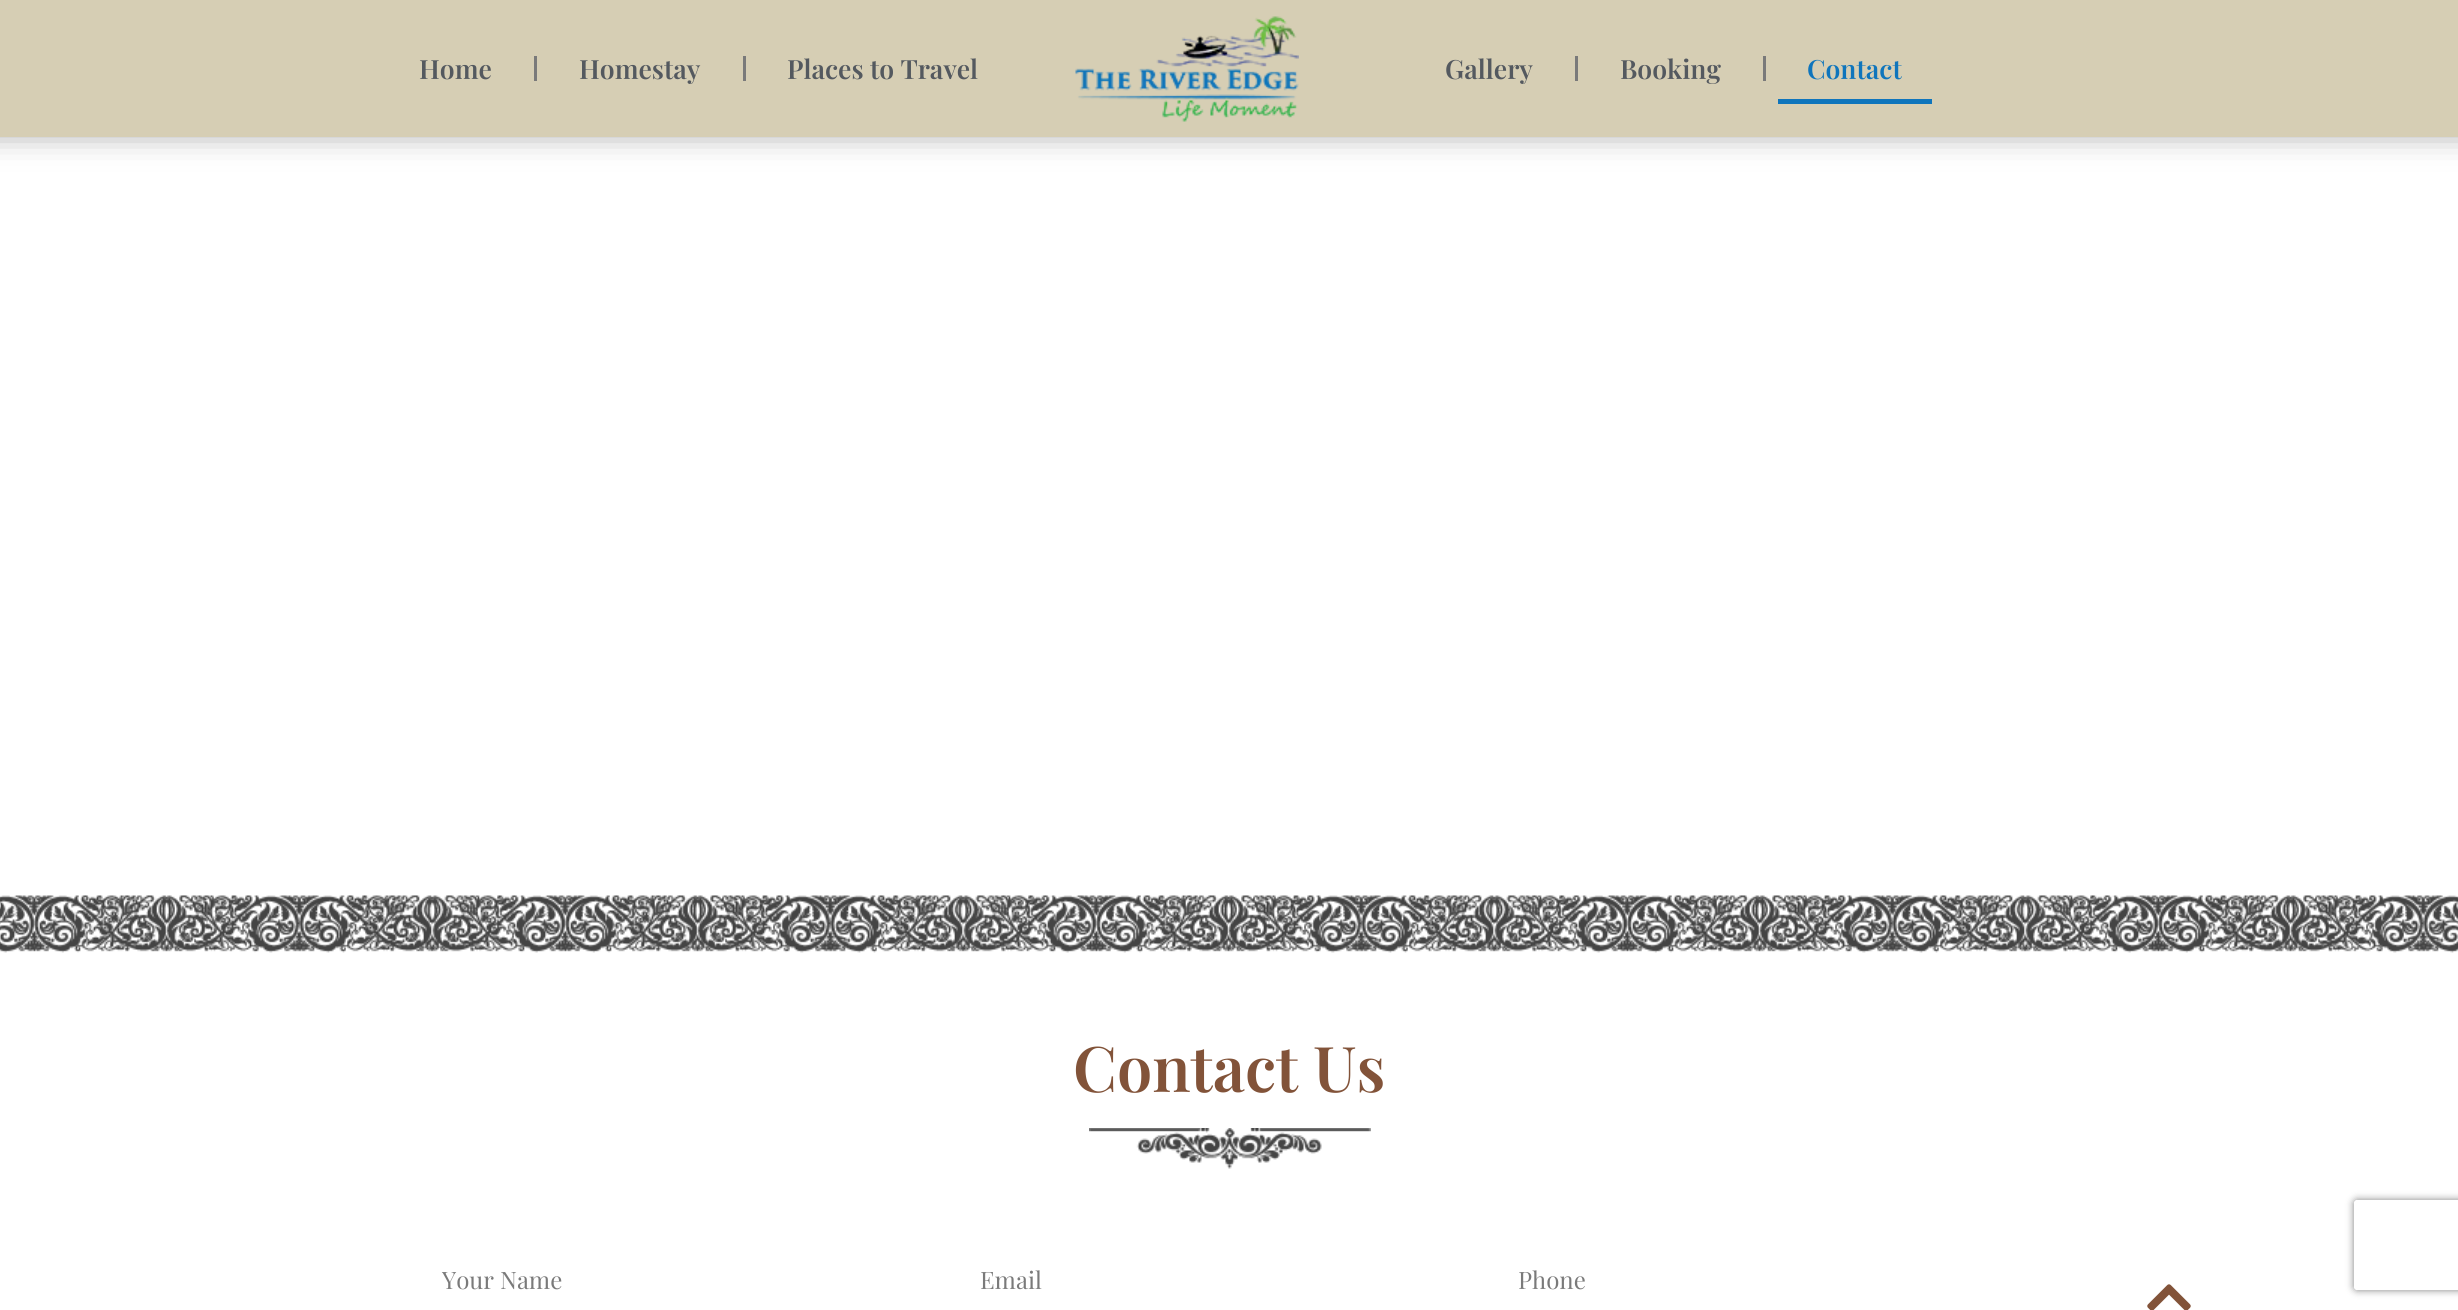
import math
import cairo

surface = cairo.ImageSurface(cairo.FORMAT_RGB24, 2458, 1310)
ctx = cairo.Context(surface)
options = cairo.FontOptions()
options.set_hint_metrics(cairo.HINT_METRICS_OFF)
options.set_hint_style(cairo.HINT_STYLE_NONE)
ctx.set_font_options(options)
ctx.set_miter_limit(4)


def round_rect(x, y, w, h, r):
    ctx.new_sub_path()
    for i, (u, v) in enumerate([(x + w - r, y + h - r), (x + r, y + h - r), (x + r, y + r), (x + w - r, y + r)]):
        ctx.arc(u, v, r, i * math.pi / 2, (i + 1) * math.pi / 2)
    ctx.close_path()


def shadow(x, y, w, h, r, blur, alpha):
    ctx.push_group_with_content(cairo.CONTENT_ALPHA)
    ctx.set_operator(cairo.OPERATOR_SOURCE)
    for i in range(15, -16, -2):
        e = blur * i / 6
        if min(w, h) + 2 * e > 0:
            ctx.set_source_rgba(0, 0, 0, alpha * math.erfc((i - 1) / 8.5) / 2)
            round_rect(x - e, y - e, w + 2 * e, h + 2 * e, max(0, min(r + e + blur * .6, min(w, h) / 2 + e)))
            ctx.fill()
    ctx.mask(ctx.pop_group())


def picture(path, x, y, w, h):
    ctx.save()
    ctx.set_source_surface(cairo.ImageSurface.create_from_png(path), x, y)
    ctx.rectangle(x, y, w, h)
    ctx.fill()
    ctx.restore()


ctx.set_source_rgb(1, 1, 1)
ctx.paint()
ctx.set_source_rgb(0, 0, 0)
shadow(-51, -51, 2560, 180, 0, 17, 0.5)
ctx.set_source_rgb(0.839, 0.808, 0.706)
ctx.rectangle(0, 0, 2458, 137)
ctx.fill()
ctx.select_font_face("Playfair Display SemiBold")
ctx.set_font_size(26.5)
ctx.set_source_rgb(0.329, 0.349, 0.373)
ctx.move_to(419, 79)
ctx.show_text("Home")
ctx.set_source_rgb(0.478, 0.478, 0.478)
ctx.rectangle(534, 56, 3, 25)
ctx.fill()
ctx.set_source_rgb(0.329, 0.349, 0.373)
ctx.move_to(579, 79)
ctx.show_text("Homestay")
ctx.set_source_rgb(0.478, 0.478, 0.478)
ctx.rectangle(743, 56, 3, 25)
ctx.fill()
ctx.set_source_rgb(0.329, 0.349, 0.373)
ctx.move_to(787, 79)
ctx.show_text("Places to Travel")
picture("img1.png", 1075, 16, 224, 106)
ctx.move_to(1445, 79)
ctx.show_text("Gallery")
ctx.set_source_rgb(0.478, 0.478, 0.478)
ctx.rectangle(1575, 56, 3, 25)
ctx.fill()
ctx.set_source_rgb(0.329, 0.349, 0.373)
ctx.move_to(1620, 79)
ctx.show_text("Booking")
ctx.set_source_rgb(0.478, 0.478, 0.478)
ctx.rectangle(1763, 56, 3, 25)
ctx.fill()
ctx.set_source_rgb(0.059, 0.459, 0.737)
ctx.move_to(1807, 79)
ctx.show_text("Contact")
ctx.rectangle(1778, 99, 154, 5)
ctx.fill()
picture("img2.png", 0, 895, 2458, 58)
ctx.set_font_size(63)
ctx.set_source_rgb(0.51, 0.325, 0.224)
ctx.move_to(1073, 1092)
ctx.show_text("Contact Us")
picture("img3.png", 1089, 1128, 282, 41)
ctx.select_font_face("Playfair Display")
ctx.set_font_size(24)
ctx.set_source_rgb(0.478, 0.478, 0.478)
ctx.move_to(442, 1289)
ctx.show_text("Your Name")
ctx.move_to(980, 1289)
ctx.show_text("Email")
ctx.move_to(1518, 1289)
ctx.show_text("Phone")
picture("img4.png", 2147, 1284, 44, 26)
ctx.save()
ctx.set_fill_rule(cairo.FILL_RULE_EVEN_ODD)
ctx.new_path()
ctx.move_to(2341, 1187)
ctx.line_to(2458, 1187)
ctx.line_to(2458, 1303)
ctx.line_to(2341, 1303)
ctx.close_path()
ctx.move_to(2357, 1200)
ctx.line_to(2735, 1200)
ctx.curve_to(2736.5, 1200, 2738, 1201.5, 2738, 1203)
ctx.line_to(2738, 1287)
ctx.curve_to(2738, 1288.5, 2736.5, 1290, 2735, 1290)
ctx.line_to(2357, 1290)
ctx.curve_to(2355.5, 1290, 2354, 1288.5, 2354, 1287)
ctx.line_to(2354, 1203)
ctx.curve_to(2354, 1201.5, 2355.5, 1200, 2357, 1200)
ctx.close_path()
ctx.clip()
ctx.set_source_rgb(0.502, 0.502, 0.502)
shadow(2354, 1200, 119, 90, 3, 4, 1)
ctx.restore()
surface.write_to_png("page.png")
